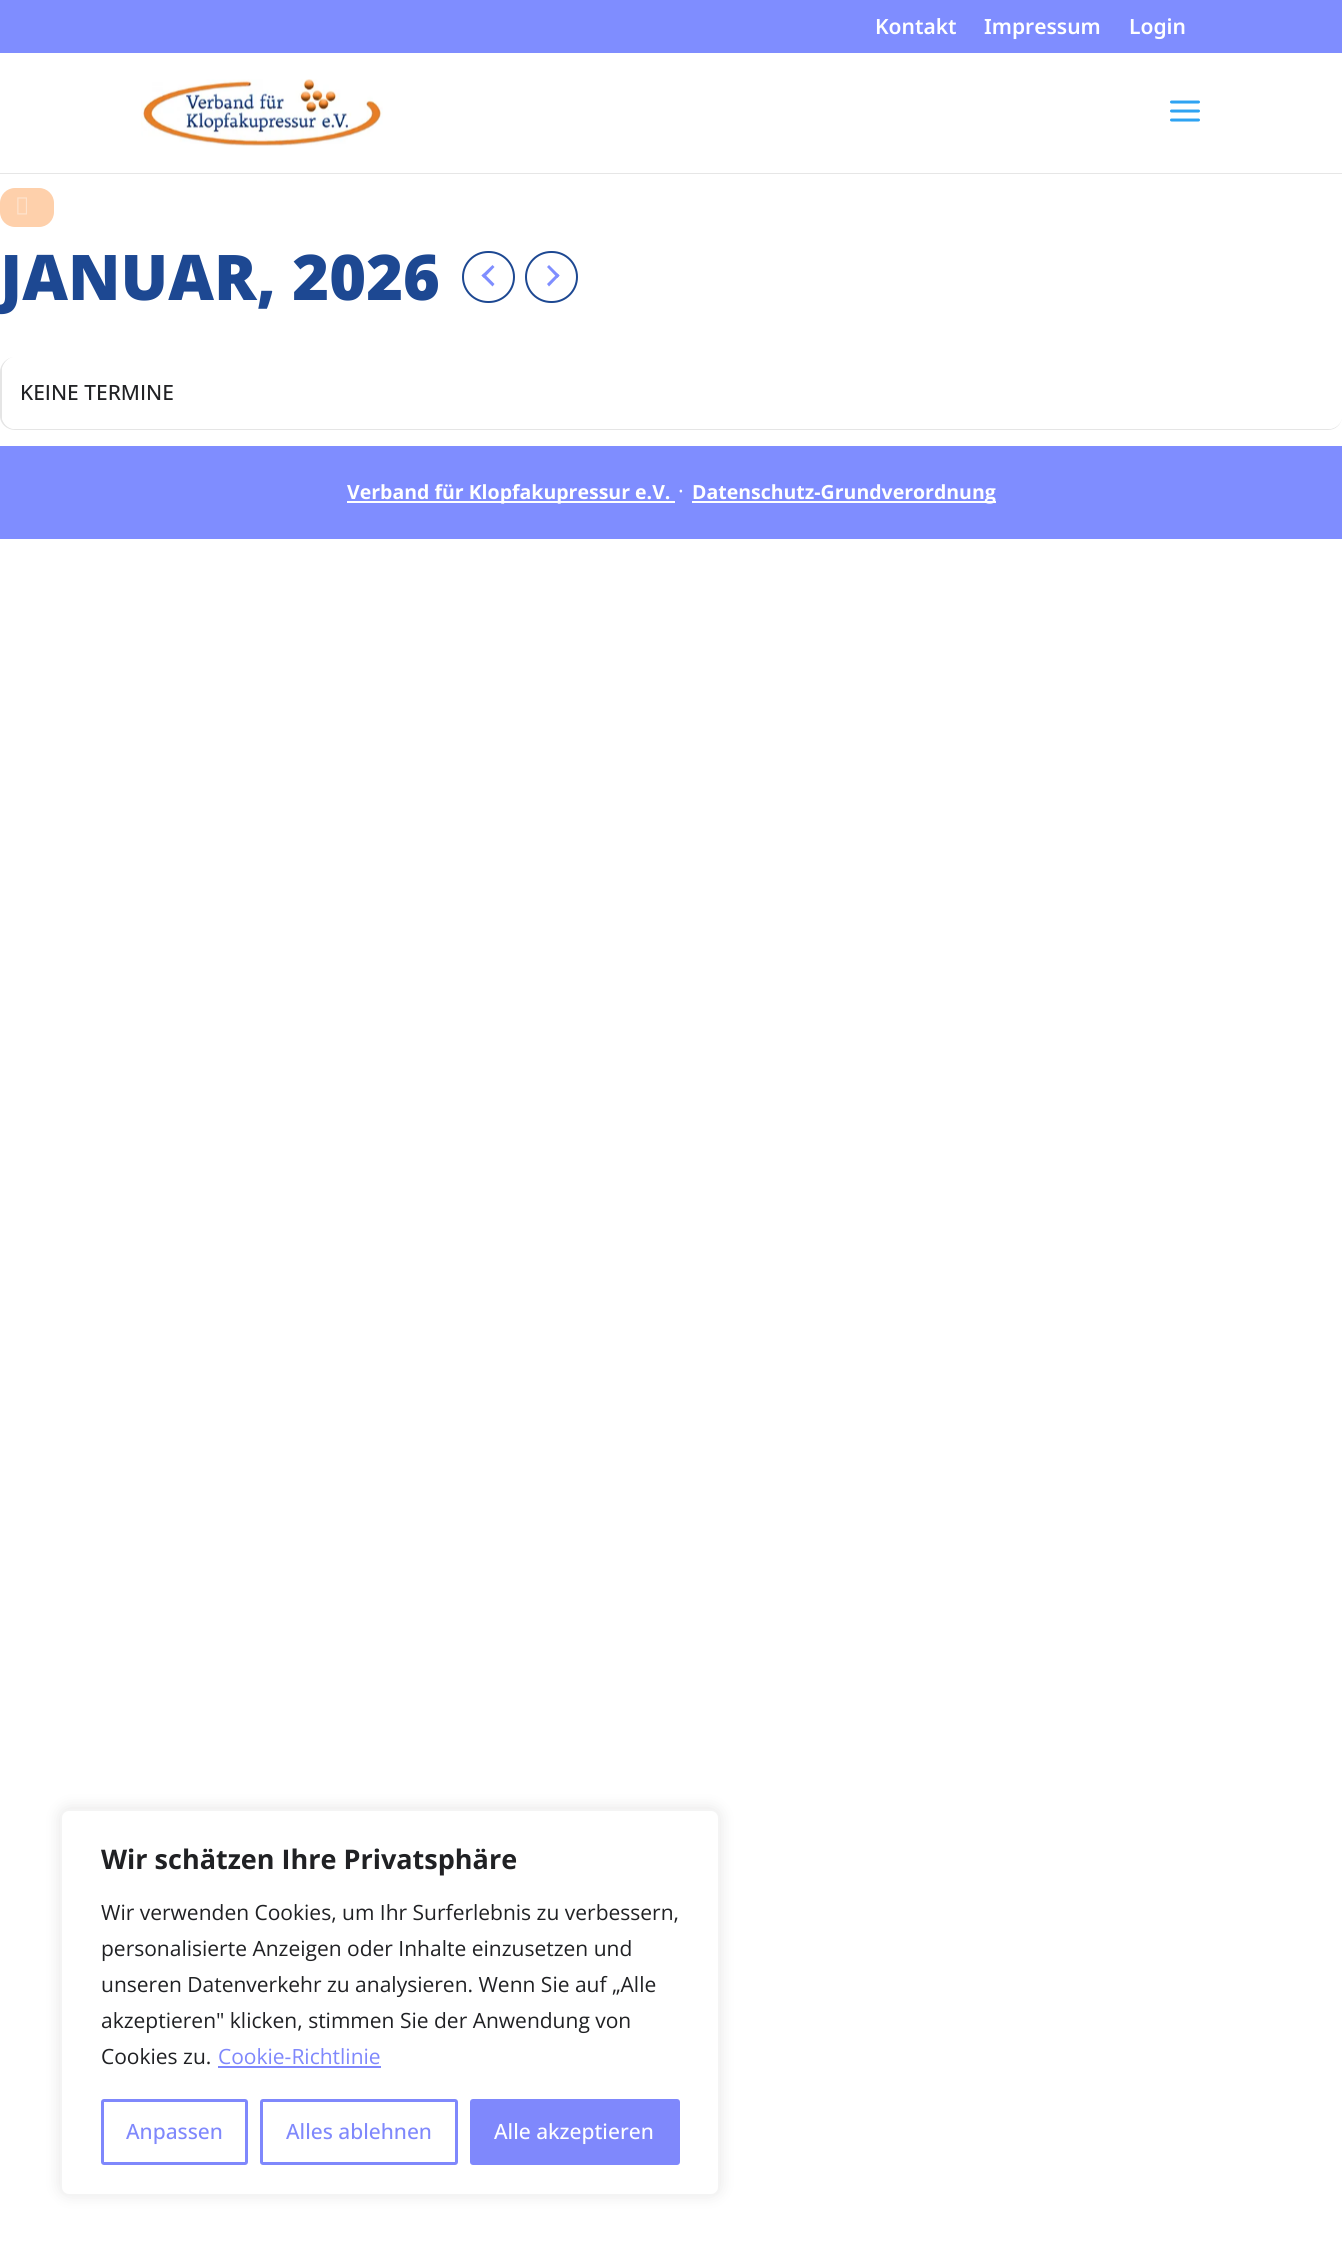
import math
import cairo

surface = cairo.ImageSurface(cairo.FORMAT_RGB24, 1342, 2256)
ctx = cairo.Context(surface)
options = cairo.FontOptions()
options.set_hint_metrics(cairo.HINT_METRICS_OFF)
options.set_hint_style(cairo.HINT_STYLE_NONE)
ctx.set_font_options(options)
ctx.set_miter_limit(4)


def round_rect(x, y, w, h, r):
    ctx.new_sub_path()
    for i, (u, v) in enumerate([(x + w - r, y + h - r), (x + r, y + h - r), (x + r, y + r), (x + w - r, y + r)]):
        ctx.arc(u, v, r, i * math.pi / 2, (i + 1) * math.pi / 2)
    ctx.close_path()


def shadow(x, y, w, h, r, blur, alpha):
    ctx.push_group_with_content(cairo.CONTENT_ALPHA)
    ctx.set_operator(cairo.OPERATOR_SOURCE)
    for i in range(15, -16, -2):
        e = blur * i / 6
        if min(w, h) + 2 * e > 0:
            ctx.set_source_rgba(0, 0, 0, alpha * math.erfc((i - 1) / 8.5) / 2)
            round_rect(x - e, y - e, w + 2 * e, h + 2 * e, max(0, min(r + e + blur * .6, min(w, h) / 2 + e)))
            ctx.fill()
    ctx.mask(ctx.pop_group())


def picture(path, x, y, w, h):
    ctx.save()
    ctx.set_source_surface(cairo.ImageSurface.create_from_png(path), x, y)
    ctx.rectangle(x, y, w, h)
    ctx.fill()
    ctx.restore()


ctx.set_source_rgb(1, 1, 1)
ctx.paint()
ctx.set_source_rgb(0.498, 0.553, 1)
ctx.rectangle(0, 0, 1342, 53)
ctx.fill()
ctx.select_font_face("Noto Sans SemiBold")
ctx.set_font_size(21)
ctx.set_source_rgb(1, 1, 1)
ctx.move_to(875, 34)
ctx.show_text("Kontakt")
ctx.move_to(984, 34)
ctx.show_text("Impressum")
ctx.move_to(1129, 34)
ctx.show_text("Login")
ctx.set_source_rgb(0.902, 0.902, 0.902)
ctx.new_path()
ctx.move_to(0, 172)
ctx.line_to(0, 174)
ctx.line_to(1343, 174)
ctx.line_to(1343, 54)
ctx.line_to(1342, 54)
ctx.line_to(1342, 172)
ctx.close_path()
ctx.fill()
ctx.set_source_rgb(1, 1, 1)
ctx.rectangle(0, 172, 1342, 1)
ctx.fill()
picture("img1.png", 141, 79, 242, 67)
picture("img2.png", 1170, 100, 30, 22)
ctx.set_source_rgb(0.996, 0.816, 0.671)
round_rect(0, 188, 54, 39, 15)
ctx.fill()
picture("img3.png", 17, 197, 10, 18)
ctx.select_font_face("Open Sans ExtraBold")
ctx.set_font_size(63)
ctx.set_source_rgb(0.114, 0.282, 0.573)
ctx.move_to(0, 300)
ctx.show_text("JANUAR, 2026")
round_rect(463, 252, 51, 50, 25)
ctx.stroke()
ctx.set_source_rgb(0.498, 0.557, 1)
ctx.new_path()
ctx.move_to(494.5, 284)
ctx.line_to(492.5, 286.5)
ctx.line_to(481.5, 275.5)
ctx.line_to(484, 273.5)
ctx.close_path()
ctx.fill()
ctx.new_path()
ctx.move_to(494.5, 267)
ctx.line_to(484, 278)
ctx.line_to(481.5, 275.5)
ctx.line_to(492.5, 265)
ctx.close_path()
ctx.fill()
round_rect(526, 252, 51, 50, 25)
ctx.set_source_rgb(0.114, 0.282, 0.573)
ctx.stroke()
ctx.set_source_rgb(0.498, 0.557, 1)
ctx.new_path()
ctx.move_to(547, 267)
ctx.line_to(549, 265)
ctx.line_to(559.5, 275.5)
ctx.line_to(557.5, 278)
ctx.close_path()
ctx.fill()
ctx.new_path()
ctx.move_to(547, 284)
ctx.line_to(557.5, 273.5)
ctx.line_to(559.5, 275.5)
ctx.line_to(549, 286.5)
ctx.close_path()
ctx.fill()
ctx.set_source_rgb(0.898, 0.898, 0.898)
ctx.set_fill_rule(cairo.FILL_RULE_EVEN_ODD)
ctx.new_path()
ctx.move_to(15, 357)
ctx.line_to(1328, 357)
ctx.curve_to(1336, 357, 1342, 364, 1342, 372)
ctx.line_to(1342, 416)
ctx.curve_to(1342, 424, 1336, 430, 1328, 430)
ctx.line_to(15, 430)
ctx.curve_to(7, 430, 0, 424, 0, 416)
ctx.line_to(0, 372)
ctx.curve_to(0, 364, 7, 357, 15, 357)
ctx.close_path()
ctx.move_to(15, 357)
ctx.line_to(1328, 357)
ctx.curve_to(1336, 357, 1342, 364, 1342, 372)
ctx.line_to(1342, 416)
ctx.curve_to(1342, 423, 1336, 429, 1328, 429)
ctx.line_to(15, 429)
ctx.curve_to(8, 429, 2, 423, 2, 416)
ctx.line_to(2, 372)
ctx.curve_to(2, 364, 8, 357, 15, 357)
ctx.close_path()
ctx.fill()
ctx.set_source_rgb(1, 1, 1)
ctx.set_fill_rule(cairo.FILL_RULE_WINDING)
ctx.new_path()
ctx.move_to(15, 357)
ctx.curve_to(9, 357, 4, 362, 2, 368)
ctx.line_to(2, 419)
ctx.curve_to(4, 425, 9, 429, 15, 429)
ctx.line_to(1328, 429)
ctx.curve_to(1336, 429, 1342, 423, 1342, 416)
ctx.line_to(1342, 372)
ctx.curve_to(1342, 364, 1336, 357, 1328, 357)
ctx.close_path()
ctx.fill()
ctx.select_font_face("Open Sans Medium")
ctx.set_font_size(21)
ctx.set_source_rgb(0.125, 0.129, 0.141)
ctx.move_to(20, 400)
ctx.show_text("KEINE TERMINE")
ctx.set_source_rgb(0.498, 0.553, 1)
ctx.rectangle(0, 446, 1342, 93)
ctx.fill()
ctx.set_source_rgb(1, 1, 1)
ctx.rectangle(347, 501, 328, 2)
ctx.fill()
ctx.select_font_face("Open Sans", cairo.FONT_SLANT_NORMAL, cairo.FONT_WEIGHT_BOLD)
ctx.set_font_size(19.5)
ctx.move_to(347, 499)
ctx.show_text("Verband für Klopfakupressur e.V.")
ctx.select_font_face("FreeMono")
ctx.move_to(675, 499)
ctx.show_text("᛫")
ctx.rectangle(692, 501, 304, 2)
ctx.fill()
ctx.select_font_face("Open Sans", cairo.FONT_SLANT_NORMAL, cairo.FONT_WEIGHT_BOLD)
ctx.move_to(692, 499)
ctx.show_text("Datenschutz-Grundverordnung")
ctx.set_source_rgb(0.675, 0.671, 0.671)
shadow(60, 1808, 660, 387, 9, 7.5, 0.3)
ctx.set_source_rgb(1, 1, 1)
round_rect(61, 1810, 658, 385, 8)
ctx.fill_preserve()
ctx.set_source_rgb(0.957, 0.957, 0.957)
ctx.stroke()
ctx.set_font_size(27)
ctx.set_source_rgb(0.125, 0.129, 0.141)
ctx.move_to(101, 1869)
ctx.show_text("Wir schätzen Ihre Privatsphäre")
ctx.select_font_face("Open Sans")
ctx.set_font_size(21)
ctx.move_to(101, 1920)
ctx.show_text("Wir verwenden Cookies, um Ihr Surferlebnis zu verbessern,")
ctx.move_to(101, 1956)
ctx.show_text("personalisierte Anzeigen oder Inhalte einzusetzen und")
ctx.move_to(101, 1992)
ctx.show_text("unseren Datenverkehr zu analysieren. Wenn Sie auf „Alle")
ctx.move_to(101, 2028)
ctx.show_text("akzeptieren\" klicken, stimmen Sie der Anwendung von")
ctx.move_to(101, 2064)
ctx.show_text("Cookies zu.")
ctx.set_source_rgb(0.498, 0.533, 0.988)
ctx.move_to(218, 2064)
ctx.show_text("Cookie-Richtlinie")
ctx.rectangle(218, 2066, 163, 2)
ctx.fill()
round_rect(102.5, 2100.5, 144, 63, 1.5)
ctx.set_line_width(3)
ctx.stroke()
ctx.select_font_face("Open Sans Medium")
ctx.move_to(126, 2139)
ctx.show_text("Anpassen")
round_rect(261.5, 2100.5, 195, 63, 1.5)
ctx.stroke()
ctx.move_to(286, 2139)
ctx.show_text("Alles ablehnen")
round_rect(471.5, 2100.5, 207, 63, 1.5)
ctx.fill_preserve()
ctx.stroke()
ctx.set_source_rgb(1, 1, 1)
ctx.move_to(494, 2139)
ctx.show_text("Alle akzeptieren")
surface.write_to_png("page.png")
